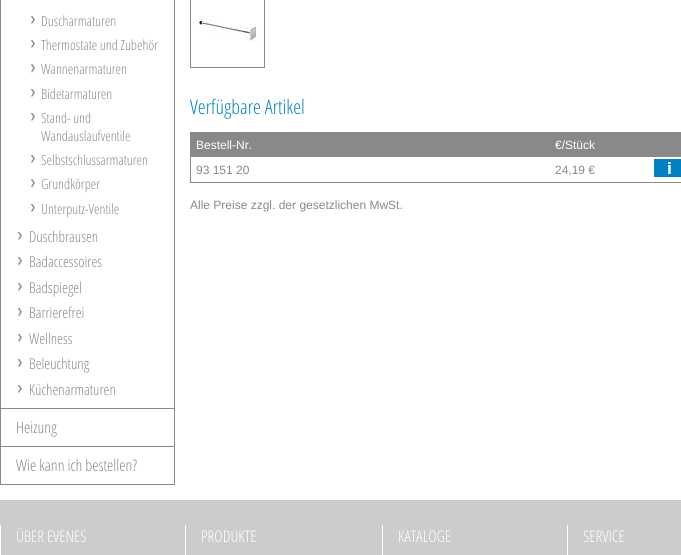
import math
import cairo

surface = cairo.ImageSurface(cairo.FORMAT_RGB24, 681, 555)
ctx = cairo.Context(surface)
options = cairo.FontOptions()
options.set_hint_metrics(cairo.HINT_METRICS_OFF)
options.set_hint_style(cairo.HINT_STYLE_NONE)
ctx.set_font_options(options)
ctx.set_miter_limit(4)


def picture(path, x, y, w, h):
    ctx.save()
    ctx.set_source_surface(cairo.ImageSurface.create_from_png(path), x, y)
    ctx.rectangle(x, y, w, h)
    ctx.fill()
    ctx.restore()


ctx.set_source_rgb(1, 1, 1)
ctx.paint()
ctx.set_source_rgb(0.537, 0.537, 0.537)
ctx.rectangle(174, 0, 1, 485)
ctx.fill()
ctx.rectangle(0, 408, 175, 1)
ctx.fill()
ctx.rectangle(0, 0, 1, 409)
ctx.fill()
picture("img1.png", 30, 16, 5, 8)
ctx.select_font_face("Open Sans Light")
ctx.set_font_size(14)
ctx.move_to(41, 26)
ctx.show_text("Duscharmaturen")
picture("img1.png", 30, 40, 5, 8)
ctx.move_to(41, 50)
ctx.show_text("Thermostate und Zubehör")
picture("img2.png", 30, 64, 5, 9)
ctx.move_to(41, 74)
ctx.show_text("Wannenarmaturen")
picture("img1.png", 30, 89, 5, 8)
ctx.move_to(41, 99)
ctx.show_text("Bidetarmaturen")
picture("img1.png", 30, 113, 5, 8)
ctx.move_to(41, 123)
ctx.show_text("Stand- und")
ctx.move_to(41, 141)
ctx.show_text("Wandauslaufventile")
picture("img1.png", 30, 155, 5, 8)
ctx.move_to(41, 165)
ctx.show_text("Selbstschlussarmaturen")
picture("img2.png", 30, 179, 5, 9)
ctx.move_to(41, 189)
ctx.show_text("Grundkörper")
picture("img1.png", 30, 204, 5, 8)
ctx.move_to(41, 214)
ctx.show_text("Unterputz-Ventile")
picture("img3.png", 17, 232, 5, 8)
ctx.set_font_size(15)
ctx.move_to(29, 242)
ctx.show_text("Duschbrausen")
picture("img4.png", 17, 257, 5, 9)
ctx.move_to(29, 267)
ctx.show_text("Badaccessoires")
picture("img3.png", 17, 283, 5, 8)
ctx.move_to(29, 293)
ctx.show_text("Badspiegel")
picture("img4.png", 17, 308, 5, 9)
ctx.move_to(29, 318)
ctx.show_text("Barrierefrei")
picture("img3.png", 17, 334, 5, 8)
ctx.move_to(29, 344)
ctx.show_text("Wellness")
picture("img4.png", 17, 359, 5, 9)
ctx.move_to(29, 369)
ctx.show_text("Beleuchtung")
picture("img3.png", 17, 385, 5, 8)
ctx.move_to(29, 395)
ctx.show_text("Küchenarmaturen")
ctx.rectangle(0, 446, 175, 1)
ctx.fill()
ctx.rectangle(0, 409, 1, 38)
ctx.fill()
ctx.set_font_size(16)
ctx.move_to(16, 433)
ctx.show_text("Heizung")
ctx.rectangle(0, 484, 175, 1)
ctx.fill()
ctx.rectangle(0, 447, 1, 38)
ctx.fill()
ctx.move_to(16, 471)
ctx.show_text("Wie kann ich bestellen?")
ctx.rectangle(190.5, -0.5, 74, 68)
ctx.set_line_width(1)
ctx.stroke()
picture("img5.png", 199, 19, 64, 23)
ctx.set_font_size(20)
ctx.set_source_rgb(0, 0.506, 0.776)
ctx.move_to(190, 114)
ctx.show_text("Verfügbare Artikel")
ctx.rectangle(190.5, 132.5, 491, 50)
ctx.set_source_rgb(0.537, 0.537, 0.537)
ctx.stroke()
ctx.rectangle(191, 133, 490, 24)
ctx.fill()
ctx.select_font_face("Liberation Sans")
ctx.set_font_size(12)
ctx.set_source_rgb(1, 1, 1)
ctx.move_to(196, 149)
ctx.show_text("Bestell-Nr.")
ctx.move_to(555, 149)
ctx.show_text("€/Stück")
ctx.set_source_rgb(0.537, 0.537, 0.537)
ctx.move_to(196, 174)
ctx.show_text("93 151 20")
ctx.move_to(555, 174)
ctx.show_text("24,19 €")
picture("img6.png", 654, 159, 27, 18)
ctx.move_to(190, 209)
ctx.show_text("Alle Preise zzgl. der gesetzlichen MwSt.")
ctx.set_source_rgb(0.8, 0.8, 0.8)
ctx.rectangle(0, 500, 681, 55)
ctx.fill()
ctx.set_source_rgb(1, 1, 1)
ctx.rectangle(0, 525, 1, 30)
ctx.fill()
ctx.select_font_face("Open Sans Light")
ctx.set_font_size(16)
ctx.move_to(16, 542)
ctx.show_text("ÜBER EVENES")
ctx.rectangle(185, 525, 1, 30)
ctx.fill()
ctx.move_to(201, 542)
ctx.show_text("PRODUKTE")
ctx.rectangle(382, 525, 1, 30)
ctx.fill()
ctx.move_to(398, 542)
ctx.show_text("KATALOGE")
ctx.rectangle(567, 525, 1, 30)
ctx.fill()
ctx.move_to(583, 542)
ctx.show_text("SERVICE")
surface.write_to_png("page.png")
